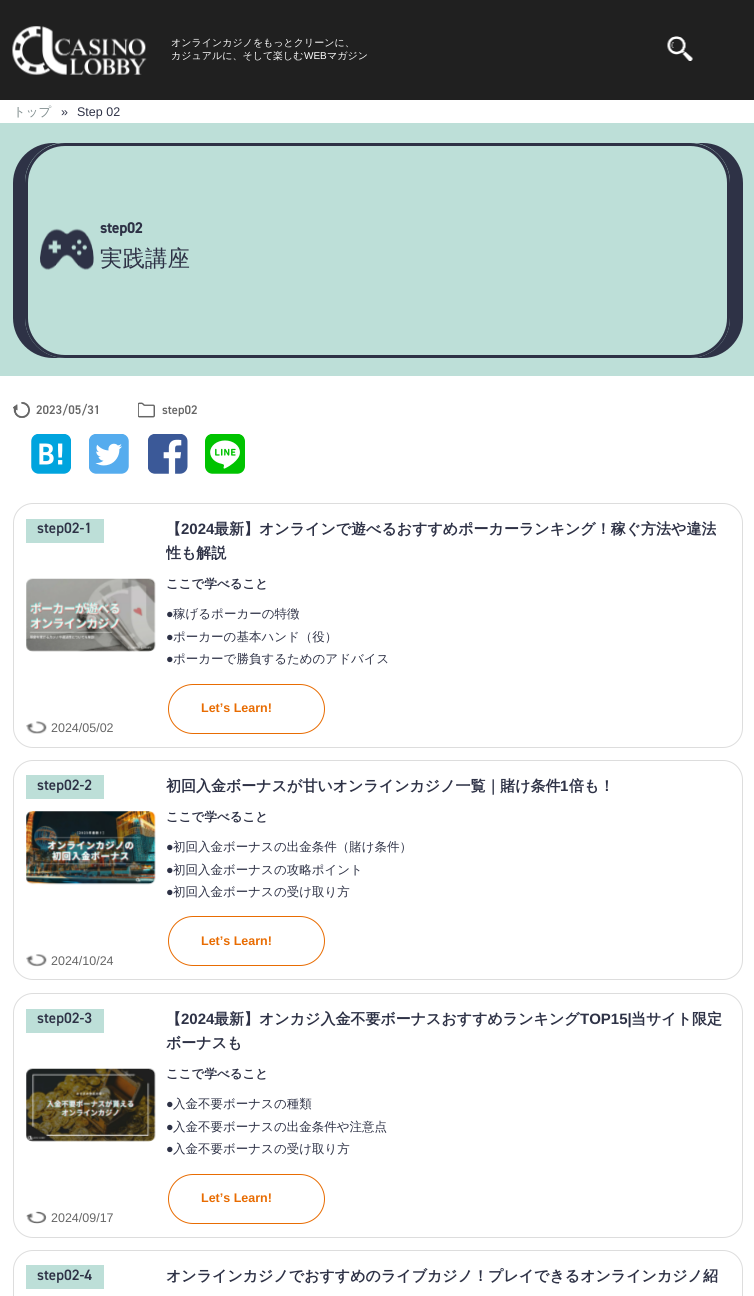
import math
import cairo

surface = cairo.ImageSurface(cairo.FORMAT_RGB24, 754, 1296)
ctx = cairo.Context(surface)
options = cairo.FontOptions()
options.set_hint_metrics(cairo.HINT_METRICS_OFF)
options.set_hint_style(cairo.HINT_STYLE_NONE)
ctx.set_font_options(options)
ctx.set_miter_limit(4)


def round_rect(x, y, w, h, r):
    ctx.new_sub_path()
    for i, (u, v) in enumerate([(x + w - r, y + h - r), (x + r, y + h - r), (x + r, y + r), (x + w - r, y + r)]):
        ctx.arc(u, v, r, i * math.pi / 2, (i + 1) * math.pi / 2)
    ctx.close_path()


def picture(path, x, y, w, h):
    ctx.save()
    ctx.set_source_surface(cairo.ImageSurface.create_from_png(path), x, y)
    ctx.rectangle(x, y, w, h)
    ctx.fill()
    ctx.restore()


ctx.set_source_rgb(1, 1, 1)
ctx.paint()
ctx.set_source_rgb(0.125, 0.125, 0.125)
ctx.rectangle(0, 0, 754, 100)
ctx.fill()
picture("img1.png", 12, 26, 135, 49)
ctx.select_font_face("WenQuanYi Zen Hei Medium")
ctx.set_font_size(10)
ctx.set_source_rgb(1, 1, 1)
ctx.move_to(171, 46)
ctx.show_text("オンラインカジノをもっとクリーンに、")
ctx.move_to(171, 59)
ctx.show_text("カジュアルに、そして楽しむ")
ctx.select_font_face("Liberation Sans")
ctx.move_to(304, 59)
ctx.show_text("WEB")
ctx.select_font_face("WenQuanYi Zen Hei Medium")
ctx.move_to(327, 59)
ctx.show_text("マガジン")
picture("img2.png", 667, 36, 26, 25)
ctx.set_font_size(12.5)
ctx.set_source_rgb(0.498, 0.549, 0.553)
ctx.move_to(13, 116)
ctx.show_text("トップ")
ctx.select_font_face("Liberation Sans")
ctx.set_source_rgb(0.18, 0.196, 0.275)
ctx.move_to(61, 116)
ctx.show_text("»")
ctx.move_to(77, 116)
ctx.show_text("Step 02")
ctx.set_source_rgb(0.741, 0.875, 0.847)
ctx.rectangle(0, 123, 754, 253)
ctx.fill()
ctx.set_source_rgb(0.18, 0.196, 0.275)
ctx.new_path()
ctx.move_to(53, 143)
ctx.curve_to(31, 143, 13, 161, 13, 183)
ctx.line_to(13, 318)
ctx.curve_to(13, 340, 31, 358, 53, 358)
ctx.line_to(678, 358)
ctx.line_to(684, 358)
ctx.line_to(65, 358)
ctx.curve_to(43, 358, 25, 340, 25, 318)
ctx.line_to(25, 182)
ctx.curve_to(25, 163, 40, 146, 59, 143)
ctx.close_path()
ctx.fill()
ctx.new_path()
ctx.move_to(72, 358)
ctx.line_to(78, 358)
ctx.line_to(703, 358)
ctx.curve_to(725, 358, 743, 340, 743, 318)
ctx.line_to(743, 183)
ctx.curve_to(743, 161, 725, 143, 703, 143)
ctx.line_to(696, 143)
ctx.curve_to(715, 146, 730, 163, 730, 182)
ctx.line_to(730, 318)
ctx.curve_to(730, 340, 712, 358, 690, 358)
ctx.close_path()
ctx.fill()
round_rect(26.5, 144.5, 702, 212, 38.5)
ctx.set_line_width(3)
ctx.stroke()
picture("img3.png", 40, 228, 54, 42)
ctx.select_font_face("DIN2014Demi", cairo.FONT_SLANT_NORMAL, cairo.FONT_WEIGHT_BOLD)
ctx.set_font_size(15)
ctx.move_to(100, 233)
ctx.show_text("step02")
ctx.select_font_face("WenQuanYi Zen Hei Medium")
ctx.set_font_size(22.5)
ctx.move_to(100, 266)
ctx.show_text("実践講座")
picture("img4.png", 13, 402, 17, 16)
ctx.select_font_face("DIN2014Demi")
ctx.set_font_size(12.5)
ctx.set_source_rgb(0.4, 0.4, 0.4)
ctx.move_to(36, 414)
ctx.show_text("2023/05/31")
picture("img5.png", 138, 402, 17, 16)
ctx.move_to(162, 414)
ctx.show_text("step02")
picture("img6.png", 31, 434, 40, 40)
picture("img7.png", 89, 434, 40, 40)
picture("img8.png", 148, 434, 40, 40)
picture("img9.png", 205, 434, 40, 40)
round_rect(13.5, 503.5, 729, 244, 19.5)
ctx.set_source_rgb(0.867, 0.867, 0.867)
ctx.set_line_width(1)
ctx.stroke()
ctx.set_source_rgb(0.741, 0.875, 0.847)
ctx.rectangle(26, 519, 78, 24)
ctx.fill()
ctx.set_font_size(15)
ctx.set_source_rgb(0.18, 0.196, 0.275)
ctx.move_to(37, 533)
ctx.show_text("step02-1")
ctx.select_font_face("WenQuanYi Zen Hei", cairo.FONT_SLANT_NORMAL, cairo.FONT_WEIGHT_BOLD)
ctx.move_to(166, 534)
ctx.show_text("【")
ctx.select_font_face("Liberation Sans", cairo.FONT_SLANT_NORMAL, cairo.FONT_WEIGHT_BOLD)
ctx.move_to(181, 534)
ctx.show_text("2024")
ctx.select_font_face("WenQuanYi Zen Hei", cairo.FONT_SLANT_NORMAL, cairo.FONT_WEIGHT_BOLD)
ctx.move_to(214, 534)
ctx.show_text("最新】オンラインで遊べるおすすめポーカーランキング！稼ぐ方法や違法")
ctx.save()
ctx.rectangle(166, 519, 563, 47)
ctx.clip()
ctx.move_to(166, 558)
ctx.show_text("性も解説")
ctx.restore()
picture("img10.png", 26, 578, 130, 74)
ctx.set_font_size(12.5)
ctx.move_to(166, 588)
ctx.show_text("ここで学べること")
ctx.select_font_face("Liberation Sans")
ctx.move_to(166, 618)
ctx.show_text("●")
ctx.select_font_face("WenQuanYi Zen Hei Medium")
ctx.move_to(173, 618)
ctx.show_text("稼げるポーカーの特徴")
ctx.select_font_face("Liberation Sans")
ctx.move_to(166, 641)
ctx.show_text("●")
ctx.select_font_face("WenQuanYi Zen Hei Medium")
ctx.move_to(173, 641)
ctx.show_text("ポーカーの基本ハンド（役）")
ctx.select_font_face("Liberation Sans")
ctx.move_to(166, 663)
ctx.show_text("●")
ctx.select_font_face("WenQuanYi Zen Hei Medium")
ctx.move_to(173, 663)
ctx.show_text("ポーカーで勝負するためのアドバイス")
round_rect(168.5, 684.5, 156, 49, 24.5)
ctx.set_source_rgb(0.91, 0.424, 0.008)
ctx.stroke()
ctx.select_font_face("Liberation Sans", cairo.FONT_SLANT_NORMAL, cairo.FONT_WEIGHT_BOLD)
ctx.move_to(201, 712)
ctx.show_text("Let’s Learn!")
picture("img11.png", 26, 721, 21, 13)
ctx.select_font_face("Liberation Sans")
ctx.set_source_rgb(0.4, 0.4, 0.4)
ctx.move_to(51, 732)
ctx.show_text("2024/05/02")
round_rect(13.5, 760.5, 729, 219, 19.5)
ctx.set_source_rgb(0.867, 0.867, 0.867)
ctx.stroke()
ctx.set_source_rgb(0.741, 0.875, 0.847)
ctx.rectangle(26, 775, 78, 24)
ctx.fill()
ctx.select_font_face("DIN2014Demi")
ctx.set_font_size(15)
ctx.set_source_rgb(0.18, 0.196, 0.275)
ctx.move_to(37, 790)
ctx.show_text("step02-2")
ctx.select_font_face("WenQuanYi Zen Hei", cairo.FONT_SLANT_NORMAL, cairo.FONT_WEIGHT_BOLD)
ctx.move_to(166, 791)
ctx.show_text("初回入金ボーナスが甘いオンラインカジノ一覧｜賭け条件")
ctx.select_font_face("Liberation Sans", cairo.FONT_SLANT_NORMAL, cairo.FONT_WEIGHT_BOLD)
ctx.move_to(560, 791)
ctx.show_text("1")
ctx.select_font_face("WenQuanYi Zen Hei", cairo.FONT_SLANT_NORMAL, cairo.FONT_WEIGHT_BOLD)
ctx.move_to(569, 791)
ctx.show_text("倍も！")
picture("img12.png", 26, 811, 130, 74)
ctx.set_font_size(12.5)
ctx.move_to(166, 821)
ctx.show_text("ここで学べること")
ctx.select_font_face("Liberation Sans")
ctx.move_to(166, 851)
ctx.show_text("●")
ctx.select_font_face("WenQuanYi Zen Hei Medium")
ctx.move_to(173, 851)
ctx.show_text("初回入金ボーナスの出金条件（賭け条件）")
ctx.select_font_face("Liberation Sans")
ctx.move_to(166, 874)
ctx.show_text("●")
ctx.select_font_face("WenQuanYi Zen Hei Medium")
ctx.move_to(173, 874)
ctx.show_text("初回入金ボーナスの攻略ポイント")
ctx.select_font_face("Liberation Sans")
ctx.move_to(166, 896)
ctx.show_text("●")
ctx.select_font_face("WenQuanYi Zen Hei Medium")
ctx.move_to(173, 896)
ctx.show_text("初回入金ボーナスの受け取り方")
round_rect(168.5, 916.5, 156, 49, 24.5)
ctx.set_source_rgb(0.91, 0.424, 0.008)
ctx.stroke()
ctx.select_font_face("Liberation Sans", cairo.FONT_SLANT_NORMAL, cairo.FONT_WEIGHT_BOLD)
ctx.move_to(201, 945)
ctx.show_text("Let’s Learn!")
picture("img13.png", 26, 954, 21, 13)
ctx.select_font_face("Liberation Sans")
ctx.set_source_rgb(0.4, 0.4, 0.4)
ctx.move_to(51, 965)
ctx.show_text("2024/10/24")
round_rect(13.5, 993.5, 729, 244, 19.5)
ctx.set_source_rgb(0.867, 0.867, 0.867)
ctx.stroke()
ctx.set_source_rgb(0.741, 0.875, 0.847)
ctx.rectangle(26, 1009, 78, 24)
ctx.fill()
ctx.select_font_face("DIN2014Demi")
ctx.set_font_size(15)
ctx.set_source_rgb(0.18, 0.196, 0.275)
ctx.move_to(37, 1023)
ctx.show_text("step02-3")
ctx.select_font_face("WenQuanYi Zen Hei", cairo.FONT_SLANT_NORMAL, cairo.FONT_WEIGHT_BOLD)
ctx.move_to(166, 1024)
ctx.show_text("【")
ctx.select_font_face("Liberation Sans", cairo.FONT_SLANT_NORMAL, cairo.FONT_WEIGHT_BOLD)
ctx.move_to(181, 1024)
ctx.show_text("2024")
ctx.select_font_face("WenQuanYi Zen Hei", cairo.FONT_SLANT_NORMAL, cairo.FONT_WEIGHT_BOLD)
ctx.move_to(214, 1024)
ctx.show_text("最新】オンカジ入金不要ボーナスおすすめランキング")
ctx.select_font_face("Liberation Sans", cairo.FONT_SLANT_NORMAL, cairo.FONT_WEIGHT_BOLD)
ctx.move_to(580, 1024)
ctx.show_text("TOP15|")
ctx.select_font_face("WenQuanYi Zen Hei", cairo.FONT_SLANT_NORMAL, cairo.FONT_WEIGHT_BOLD)
ctx.move_to(631, 1024)
ctx.show_text("当サイト限定")
ctx.move_to(166, 1048)
ctx.show_text("ボーナスも")
picture("img14.png", 26, 1068, 130, 74)
ctx.set_font_size(12.5)
ctx.move_to(166, 1078)
ctx.show_text("ここで学べること")
ctx.select_font_face("Liberation Sans")
ctx.move_to(166, 1108)
ctx.show_text("●")
ctx.select_font_face("WenQuanYi Zen Hei Medium")
ctx.move_to(173, 1108)
ctx.show_text("入金不要ボーナスの種類")
ctx.select_font_face("Liberation Sans")
ctx.move_to(166, 1131)
ctx.show_text("●")
ctx.select_font_face("WenQuanYi Zen Hei Medium")
ctx.move_to(173, 1131)
ctx.show_text("入金不要ボーナスの出金条件や注意点")
ctx.select_font_face("Liberation Sans")
ctx.move_to(166, 1153)
ctx.show_text("●")
ctx.select_font_face("WenQuanYi Zen Hei Medium")
ctx.move_to(173, 1153)
ctx.show_text("入金不要ボーナスの受け取り方")
round_rect(168.5, 1174.5, 156, 49, 24.5)
ctx.set_source_rgb(0.91, 0.424, 0.008)
ctx.stroke()
ctx.select_font_face("Liberation Sans", cairo.FONT_SLANT_NORMAL, cairo.FONT_WEIGHT_BOLD)
ctx.move_to(201, 1202)
ctx.show_text("Let’s Learn!")
picture("img15.png", 26, 1211, 21, 13)
ctx.select_font_face("Liberation Sans")
ctx.set_source_rgb(0.4, 0.4, 0.4)
ctx.move_to(51, 1222)
ctx.show_text("2024/09/17")
round_rect(13.5, 1250.5, 729, 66, 19.5)
ctx.set_source_rgb(0.867, 0.867, 0.867)
ctx.stroke()
ctx.set_source_rgb(0.741, 0.875, 0.847)
ctx.rectangle(26, 1265, 78, 24)
ctx.fill()
ctx.select_font_face("DIN2014Demi")
ctx.set_font_size(15)
ctx.set_source_rgb(0.18, 0.196, 0.275)
ctx.move_to(37, 1280)
ctx.show_text("step02-4")
ctx.select_font_face("WenQuanYi Zen Hei", cairo.FONT_SLANT_NORMAL, cairo.FONT_WEIGHT_BOLD)
ctx.move_to(166, 1281)
ctx.show_text("オンラインカジノでおすすめのライブカジノ！プレイできるオンラインカジノ紹")
surface.write_to_png("page.png")
